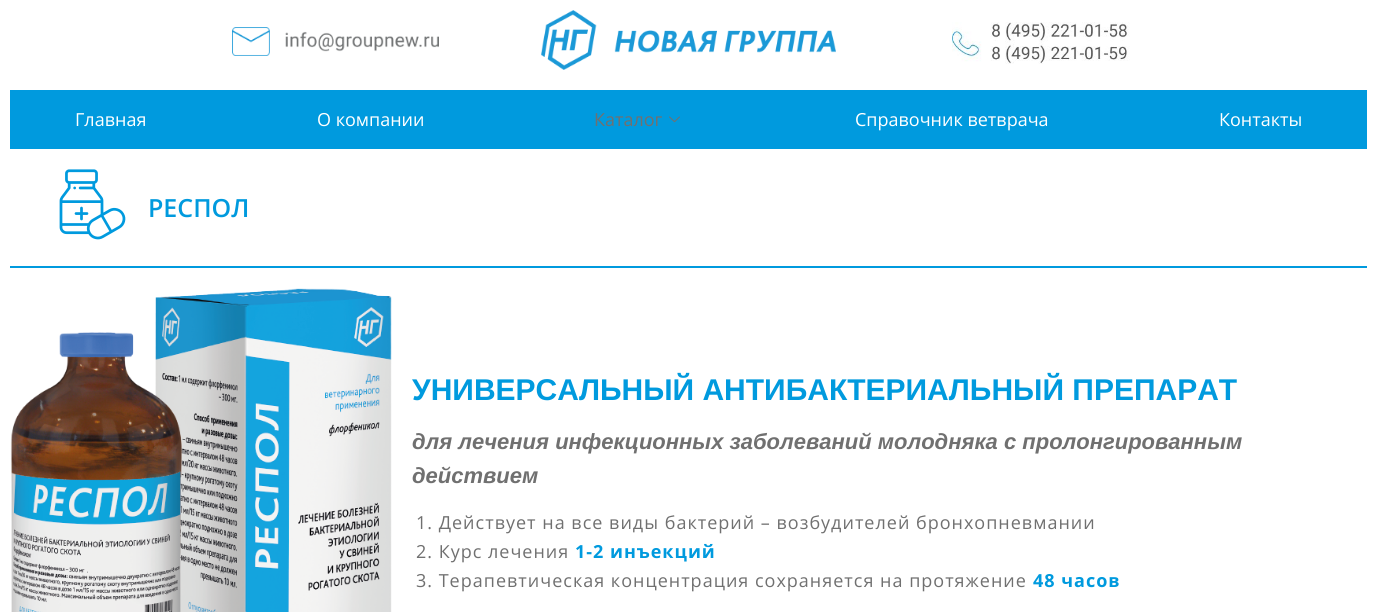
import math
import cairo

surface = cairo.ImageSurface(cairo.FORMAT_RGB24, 1377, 612)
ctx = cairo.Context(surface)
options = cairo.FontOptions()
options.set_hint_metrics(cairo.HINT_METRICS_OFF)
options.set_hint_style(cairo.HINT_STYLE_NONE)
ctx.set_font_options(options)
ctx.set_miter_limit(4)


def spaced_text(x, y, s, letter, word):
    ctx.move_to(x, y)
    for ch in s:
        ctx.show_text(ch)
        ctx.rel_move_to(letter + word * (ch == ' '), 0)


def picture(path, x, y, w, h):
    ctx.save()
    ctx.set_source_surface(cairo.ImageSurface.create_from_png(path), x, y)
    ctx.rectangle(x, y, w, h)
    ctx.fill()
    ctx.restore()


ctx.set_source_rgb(1, 1, 1)
ctx.paint()
picture("img1.png", 232, 27, 207, 29)
picture("img2.png", 541, 10, 295, 60)
picture("img3.png", 952, 22, 178, 42)
ctx.set_source_rgb(0, 0.604, 0.871)
ctx.rectangle(10, 90, 1357, 59)
ctx.fill()
ctx.select_font_face("Open Sans")
ctx.set_font_size(18)
ctx.set_source_rgb(1, 1, 1)
ctx.move_to(75, 126)
ctx.show_text("Главная")
ctx.move_to(317, 126)
ctx.show_text("О компании")
ctx.set_source_rgb(0.439, 0.439, 0.439)
ctx.move_to(594, 126)
ctx.show_text("Каталог")
picture("img4.png", 669, 116, 11, 7)
ctx.set_source_rgb(1, 1, 1)
ctx.move_to(855, 126)
ctx.show_text("Справочник ветврача")
ctx.move_to(1219, 126)
ctx.show_text("Контакты")
picture("img5.png", 59, 169, 67, 71)
ctx.select_font_face("Open Sans SemiBold")
ctx.set_font_size(25)
ctx.set_source_rgb(0, 0.604, 0.871)
ctx.move_to(148, 217)
ctx.show_text("РЕСПОЛ")
ctx.rectangle(10, 266, 1357, 2)
ctx.fill()
picture("img6.png", 10, 288, 382, 324)
ctx.select_font_face("Liberation Sans", cairo.FONT_SLANT_NORMAL, cairo.FONT_WEIGHT_BOLD)
ctx.set_font_size(30)
ctx.move_to(412, 400)
ctx.show_text("УНИВЕРСАЛЬНЫЙ АНТИБАКТЕРИАЛЬНЫЙ ПРЕПАРАТ")
ctx.select_font_face("Liberation Sans", cairo.FONT_SLANT_ITALIC, cairo.FONT_WEIGHT_BOLD)
ctx.set_font_size(22)
ctx.set_source_rgb(0.439, 0.439, 0.439)
ctx.move_to(412, 449)
ctx.show_text("для лечения инфекционных заболеваний молодняка с пролонгированным")
ctx.move_to(412, 483)
ctx.show_text("действием")
ctx.select_font_face("Open Sans")
ctx.set_font_size(18)
spaced_text(416, 529, "1. Действует на все виды бактерий – возбудителей бронхопневмании", 1, 0)
spaced_text(416, 558, "2. Курс лечения", 1, 0)
ctx.select_font_face("Open Sans", cairo.FONT_SLANT_NORMAL, cairo.FONT_WEIGHT_BOLD)
ctx.set_source_rgb(0, 0.604, 0.871)
spaced_text(575, 558, "1-2 инъекций", 1, 0)
ctx.select_font_face("Open Sans")
ctx.set_source_rgb(0.439, 0.439, 0.439)
spaced_text(416, 587, "3. Терапевтическая концентрация сохраняется на протяжение", 1, 0)
ctx.select_font_face("Open Sans", cairo.FONT_SLANT_NORMAL, cairo.FONT_WEIGHT_BOLD)
ctx.set_source_rgb(0, 0.604, 0.871)
spaced_text(1033, 587, "48 часов", 1, 0)
surface.write_to_png("page.png")
